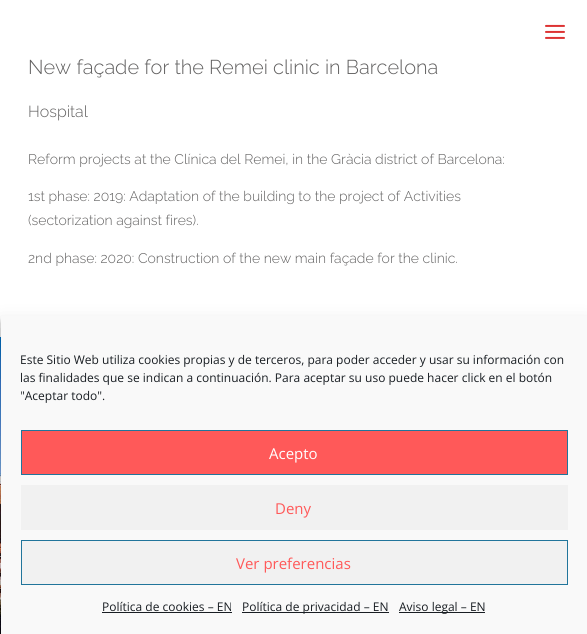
import math
import cairo

surface = cairo.ImageSurface(cairo.FORMAT_RGB24, 587, 634)
ctx = cairo.Context(surface)
options = cairo.FontOptions()
options.set_hint_metrics(cairo.HINT_METRICS_OFF)
options.set_hint_style(cairo.HINT_STYLE_NONE)
ctx.set_font_options(options)
ctx.set_miter_limit(4)


def round_rect(x, y, w, h, r):
    ctx.new_sub_path()
    for i, (u, v) in enumerate([(x + w - r, y + h - r), (x + r, y + h - r), (x + r, y + r), (x + w - r, y + r)]):
        ctx.arc(u, v, r, i * math.pi / 2, (i + 1) * math.pi / 2)
    ctx.close_path()


def shadow(x, y, w, h, r, blur, alpha):
    ctx.push_group_with_content(cairo.CONTENT_ALPHA)
    ctx.set_operator(cairo.OPERATOR_SOURCE)
    for i in range(15, -16, -2):
        e = blur * i / 6
        if min(w, h) + 2 * e > 0:
            ctx.set_source_rgba(0, 0, 0, alpha * math.erfc((i - 1) / 8.5) / 2)
            round_rect(x - e, y - e, w + 2 * e, h + 2 * e, max(0, min(r + e + blur * .6, min(w, h) / 2 + e)))
            ctx.fill()
    ctx.mask(ctx.pop_group())


def picture(path, x, y, w, h):
    ctx.save()
    ctx.set_source_surface(cairo.ImageSurface.create_from_png(path), x, y)
    ctx.rectangle(x, y, w, h)
    ctx.fill()
    ctx.restore()


ctx.set_source_rgb(1, 1, 1)
ctx.paint()
picture("img1.png", 545, 24, 20, 15)
ctx.select_font_face("Raleway Thin")
ctx.set_font_size(20)
ctx.set_source_rgb(0.38, 0.376, 0.376)
ctx.move_to(28, 74)
ctx.show_text("New façade for the Remei clinic in Barcelona")
ctx.set_font_size(16)
ctx.move_to(28, 117)
ctx.show_text("Hospital")
ctx.set_font_size(14)
ctx.move_to(28, 164)
ctx.show_text("Reform projects at the Clínica del Remei, in the Gràcia district of Barcelona:")
ctx.move_to(28, 201)
ctx.show_text("1st phase: 2019: Adaptation of the building to the project of Activities")
ctx.move_to(28, 225)
ctx.show_text("(sectorization against fires).")
ctx.move_to(28, 263)
ctx.show_text("2nd phase: 2020: Construction of the new main façade for the clinic.")
picture("img2.png", 0, 337, 1, 297)
ctx.set_source_rgb(0, 0, 0)
shadow(1, 322, 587, 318, 0, 3, 0.23)
shadow(1, 326, 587, 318, 0, 10, 0.19)
ctx.set_source_rgb(0.976, 0.976, 0.976)
ctx.rectangle(1, 316, 586, 318)
ctx.fill()
ctx.select_font_face("Open Sans")
ctx.set_font_size(12)
ctx.set_source_rgb(0.098, 0.118, 0.137)
ctx.move_to(20, 364)
ctx.show_text("Este Sitio Web utiliza cookies propias y de terceros, para poder acceder y usar su información con")
ctx.move_to(20, 382)
ctx.show_text("las finalidades que se indican a continuación. Para aceptar su uso puede hacer click en el botón")
ctx.save()
ctx.rectangle(21, 351, 547, 59)
ctx.clip()
ctx.move_to(20, 400)
ctx.show_text("\"Aceptar todo\".")
ctx.restore()
ctx.set_source_rgb(1, 0.349, 0.349)
ctx.rectangle(21.5, 430.5, 546, 44)
ctx.fill_preserve()
ctx.set_source_rgb(0.129, 0.459, 0.608)
ctx.set_line_width(1)
ctx.stroke()
ctx.set_font_size(15)
ctx.set_source_rgb(1, 1, 1)
ctx.move_to(269, 459)
ctx.show_text("Acepto")
ctx.set_source_rgb(0.945, 0.945, 0.945)
ctx.rectangle(21, 485, 547, 45)
ctx.fill()
ctx.set_source_rgb(1, 0.349, 0.349)
ctx.move_to(275, 514)
ctx.show_text("Deny")
ctx.set_source_rgb(0.945, 0.945, 0.945)
ctx.rectangle(21.5, 540.5, 546, 44)
ctx.fill_preserve()
ctx.set_source_rgb(0.129, 0.459, 0.608)
ctx.stroke()
ctx.set_source_rgb(1, 0.349, 0.349)
ctx.move_to(236, 569)
ctx.show_text("Ver preferencias")
ctx.set_font_size(12)
ctx.set_source_rgb(0.098, 0.118, 0.137)
ctx.move_to(102, 611)
ctx.show_text("Política de cookies – EN")
ctx.rectangle(102, 612, 130, 1)
ctx.fill()
ctx.rectangle(242, 612, 147, 1)
ctx.fill()
ctx.move_to(242, 611)
ctx.show_text("Política de privacidad – EN")
ctx.rectangle(399, 612, 86, 1)
ctx.fill()
ctx.move_to(399, 611)
ctx.show_text("Aviso legal – EN")
surface.write_to_png("page.png")
